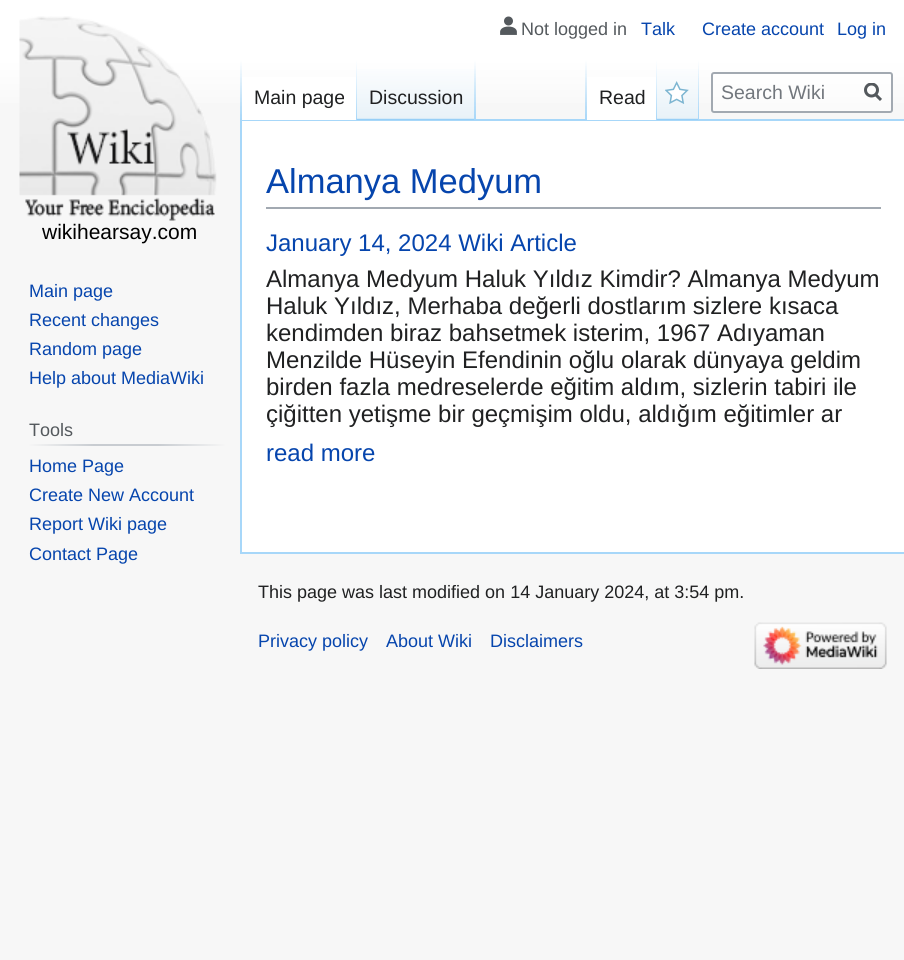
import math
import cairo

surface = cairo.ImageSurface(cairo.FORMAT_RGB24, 904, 960)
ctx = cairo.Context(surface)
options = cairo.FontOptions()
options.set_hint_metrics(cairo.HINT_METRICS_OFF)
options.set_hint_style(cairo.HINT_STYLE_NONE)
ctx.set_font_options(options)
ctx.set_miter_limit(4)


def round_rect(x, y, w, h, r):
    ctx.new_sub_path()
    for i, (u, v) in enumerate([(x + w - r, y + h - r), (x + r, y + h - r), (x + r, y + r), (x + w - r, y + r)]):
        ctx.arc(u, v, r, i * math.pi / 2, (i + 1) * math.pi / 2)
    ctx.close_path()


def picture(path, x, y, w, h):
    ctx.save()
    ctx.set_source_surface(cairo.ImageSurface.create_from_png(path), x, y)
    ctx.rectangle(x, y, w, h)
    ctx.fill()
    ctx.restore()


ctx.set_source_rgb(0.965, 0.965, 0.965)
ctx.paint()
gradient = cairo.LinearGradient(452, 0, 452, 120)
gradient.add_color_stop_rgba(0.5, 1, 1, 1, 1)
gradient.add_color_stop_rgba(1, 0.965, 0.965, 0.965, 1)
ctx.set_source(gradient)
ctx.rectangle(0, 0, 904, 103)
ctx.fill()
picture("img1.png", 500, 16, 17, 19)
ctx.select_font_face("Liberation Sans")
ctx.set_font_size(18)
ctx.set_source_rgb(0.329, 0.349, 0.365)
ctx.move_to(521, 35)
ctx.show_text("Not logged in")
ctx.set_source_rgb(0.024, 0.271, 0.678)
ctx.move_to(641, 35)
ctx.show_text("Talk")
ctx.move_to(702, 35)
ctx.show_text("Create account")
ctx.move_to(837, 35)
ctx.show_text("Log in")
ctx.set_source_rgb(0.655, 0.843, 0.976)
ctx.rectangle(240, 119, 664, 2)
ctx.fill()
ctx.rectangle(240, 552, 664, 2)
ctx.fill()
ctx.rectangle(240, 119, 2, 435)
ctx.fill()
gradient = cairo.LinearGradient(241, 60, 241, 120)
gradient.add_color_stop_rgba(0, 0.655, 0.843, 0.976, 0)
gradient.add_color_stop_rgba(1, 0.655, 0.843, 0.976, 1)
ctx.set_source(gradient)
ctx.rectangle(240, 60, 2, 60)
ctx.fill()
ctx.set_source_rgb(1, 1, 1)
ctx.rectangle(242, 77, 114, 43)
ctx.fill()
gradient = cairo.LinearGradient(356, 60, 356, 120)
gradient.add_color_stop_rgba(0, 1, 1, 1, 1)
gradient.add_color_stop_rgba(1, 0.655, 0.843, 0.976, 1)
ctx.set_source(gradient)
ctx.rectangle(356, 60, 1, 60)
ctx.fill()
ctx.set_font_size(19.5)
ctx.set_source_rgb(0.125, 0.129, 0.133)
ctx.move_to(254, 104)
ctx.show_text("Main page")
gradient = cairo.LinearGradient(416, 120, 416, 60)
gradient.add_color_stop_rgba(0, 0.467, 0.757, 0.965, 1)
gradient.add_color_stop_rgba(0.03, 0.91, 0.949, 0.973, 1)
gradient.add_color_stop_rgba(1, 1, 1, 1, 1)
ctx.set_source(gradient)
ctx.rectangle(357, 69, 119, 51)
ctx.fill()
gradient = cairo.LinearGradient(475, 60, 475, 120)
gradient.add_color_stop_rgba(0, 0.655, 0.843, 0.976, 0)
gradient.add_color_stop_rgba(1, 0.655, 0.843, 0.976, 1)
ctx.set_source(gradient)
ctx.rectangle(474, 60, 2, 60)
ctx.fill()
ctx.set_source_rgb(0.125, 0.129, 0.133)
ctx.move_to(369, 104)
ctx.show_text("Discussion")
gradient = cairo.LinearGradient(586, 60, 586, 120)
gradient.add_color_stop_rgba(0, 0.655, 0.843, 0.976, 0)
gradient.add_color_stop_rgba(1, 0.655, 0.843, 0.976, 1)
ctx.set_source(gradient)
ctx.rectangle(585, 60, 2, 60)
ctx.fill()
ctx.set_source_rgb(1, 1, 1)
ctx.rectangle(587, 77, 69, 43)
ctx.fill()
gradient = cairo.LinearGradient(656, 60, 656, 120)
gradient.add_color_stop_rgba(0, 1, 1, 1, 1)
gradient.add_color_stop_rgba(1, 0.655, 0.843, 0.976, 1)
ctx.set_source(gradient)
ctx.rectangle(656, 60, 1, 60)
ctx.fill()
ctx.set_source_rgb(0.125, 0.129, 0.133)
ctx.move_to(599, 104)
ctx.show_text("Read")
gradient = cairo.LinearGradient(678, 120, 678, 60)
gradient.add_color_stop_rgba(0, 0.467, 0.757, 0.965, 1)
gradient.add_color_stop_rgba(0.03, 0.91, 0.949, 0.973, 1)
gradient.add_color_stop_rgba(1, 1, 1, 1, 1)
ctx.set_source(gradient)
ctx.rectangle(657, 69, 42, 51)
ctx.fill()
gradient = cairo.LinearGradient(698, 60, 698, 120)
gradient.add_color_stop_rgba(0, 0.655, 0.843, 0.976, 0)
gradient.add_color_stop_rgba(1, 0.655, 0.843, 0.976, 1)
ctx.set_source(gradient)
ctx.rectangle(698, 60, 1, 60)
ctx.fill()
picture("img2.png", 665, 81, 24, 23)
ctx.set_source_rgba(1, 1, 1, 0.5)
round_rect(712, 73, 180, 39, 2)
ctx.fill_preserve()
ctx.set_source_rgb(0.635, 0.663, 0.694)
ctx.stroke()
ctx.set_source_rgb(0.447, 0.467, 0.49)
ctx.move_to(721, 99)
ctx.show_text("Search Wiki")
ctx.new_path()
ctx.move_to(881, 100)
ctx.line_to(875, 94)
ctx.set_source_rgb(0.329, 0.349, 0.365)
ctx.set_line_width(3)
ctx.stroke()
ctx.save()
ctx.rectangle(864, 83, 18, 19)
ctx.clip()
ctx.arc(871.5, 90, 6, 0, 2 * math.pi)
ctx.stroke()
ctx.restore()
picture("img3.png", 19, 16, 198, 205)
ctx.set_font_size(21)
ctx.set_source_rgb(0, 0, 0)
ctx.move_to(42, 239)
ctx.show_text("wikihearsay.com")
ctx.set_font_size(18)
ctx.set_source_rgb(0.024, 0.271, 0.678)
ctx.move_to(29, 297)
ctx.show_text("Main page")
ctx.move_to(29, 326)
ctx.show_text("Recent changes")
ctx.move_to(29, 355)
ctx.show_text("Random page")
ctx.move_to(29, 384)
ctx.show_text("Help about MediaWiki")
gradient = cairo.LinearGradient(29, 445, 225, 445)
gradient.add_color_stop_rgba(0, 0.965, 0.965, 0.965, 1)
gradient.add_color_stop_rgba(0.33, 0.784, 0.8, 0.82, 1)
gradient.add_color_stop_rgba(0.66, 0.784, 0.8, 0.82, 1)
gradient.add_color_stop_rgba(1, 0.965, 0.965, 0.965, 1)
ctx.set_source(gradient)
ctx.rectangle(29, 444, 196, 2)
ctx.fill()
ctx.set_source_rgb(0.329, 0.349, 0.365)
ctx.move_to(29, 436)
ctx.show_text("Tools")
ctx.set_source_rgb(0.024, 0.271, 0.678)
ctx.move_to(29, 472)
ctx.show_text("Home Page")
ctx.move_to(29, 501)
ctx.show_text("Create New Account")
ctx.move_to(29, 530)
ctx.show_text("Report Wiki page")
ctx.move_to(29, 560)
ctx.show_text("Contact Page")
ctx.set_source_rgb(1, 1, 1)
ctx.rectangle(242, 121, 662, 431)
ctx.fill()
ctx.set_source_rgb(0.635, 0.663, 0.694)
ctx.rectangle(266, 207, 615, 2)
ctx.fill()
ctx.set_font_size(34.5)
ctx.set_source_rgb(0.024, 0.271, 0.678)
ctx.move_to(266, 193)
ctx.show_text("Almanya Medyum")
ctx.set_font_size(24)
ctx.move_to(266, 251)
ctx.show_text("January 14, 2024 Wiki Article")
ctx.set_source_rgb(0.125, 0.129, 0.133)
ctx.move_to(266, 287)
ctx.show_text("Almanya Medyum Haluk Yıldız Kimdir? Almanya Medyum")
ctx.move_to(266, 314)
ctx.show_text("Haluk Yıldız, Merhaba değerli dostlarım sizlere kısaca")
ctx.move_to(266, 341)
ctx.show_text("kendimden biraz bahsetmek isterim, 1967 Adıyaman")
ctx.move_to(266, 368)
ctx.show_text("Menzilde Hüseyin Efendinin oğlu olarak dünyaya geldim")
ctx.move_to(266, 395)
ctx.show_text("birden fazla medreselerde eğitim aldım, sizlerin tabiri ile")
ctx.move_to(266, 422)
ctx.show_text("çiğitten yetişme bir geçmişim oldu, aldığım eğitimler ar")
ctx.set_source_rgb(0.024, 0.271, 0.678)
ctx.move_to(266, 461)
ctx.show_text("read more")
ctx.set_font_size(18)
ctx.set_source_rgb(0.125, 0.129, 0.133)
ctx.move_to(258, 598)
ctx.show_text("This page was last modified on 14 January 2024, at 3:54 pm.")
ctx.set_source_rgb(0.024, 0.271, 0.678)
ctx.move_to(258, 647)
ctx.show_text("Privacy policy")
ctx.move_to(386, 647)
ctx.show_text("About Wiki")
ctx.move_to(490, 647)
ctx.show_text("Disclaimers")
picture("img4.png", 754, 622, 133, 47)
surface.write_to_png("page.png")
